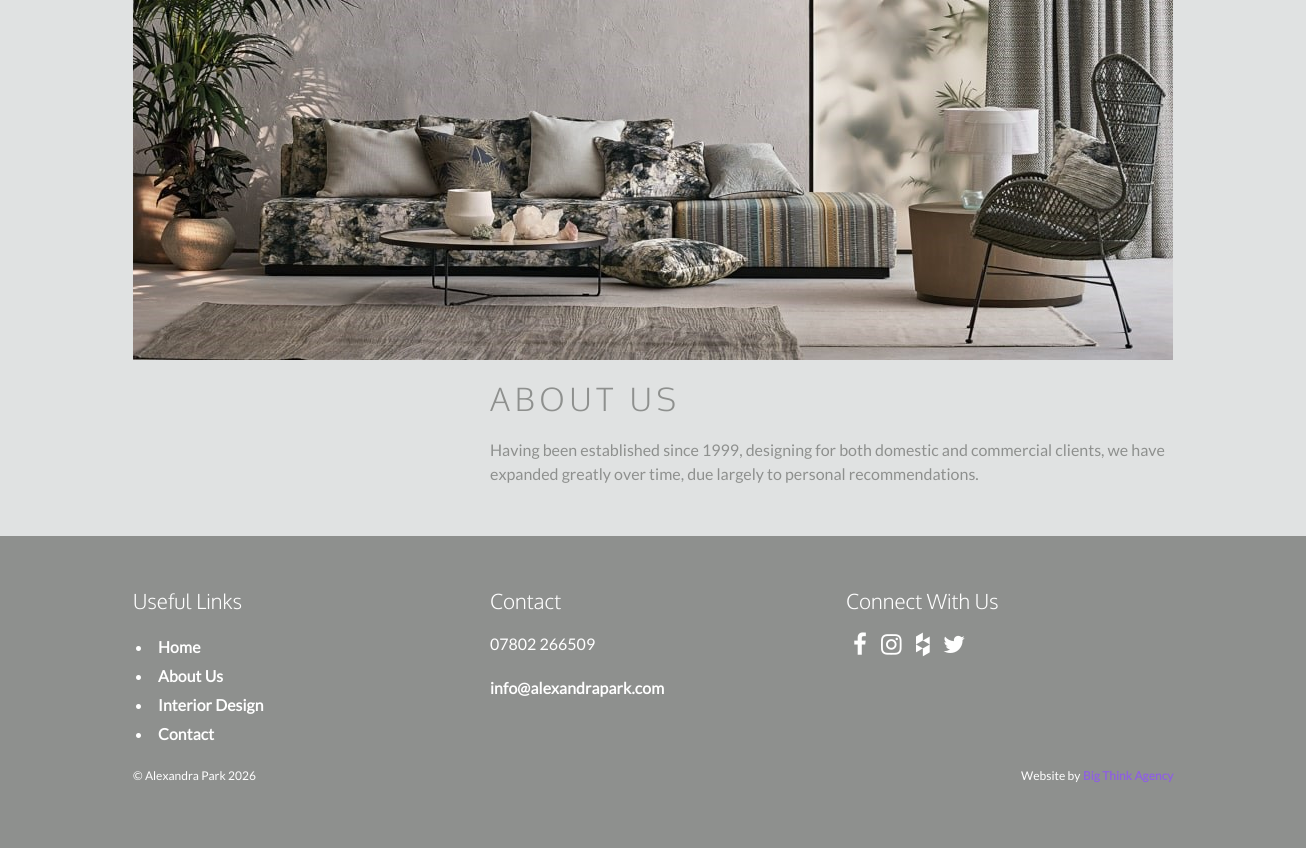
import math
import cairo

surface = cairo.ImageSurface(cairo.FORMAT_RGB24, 1306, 848)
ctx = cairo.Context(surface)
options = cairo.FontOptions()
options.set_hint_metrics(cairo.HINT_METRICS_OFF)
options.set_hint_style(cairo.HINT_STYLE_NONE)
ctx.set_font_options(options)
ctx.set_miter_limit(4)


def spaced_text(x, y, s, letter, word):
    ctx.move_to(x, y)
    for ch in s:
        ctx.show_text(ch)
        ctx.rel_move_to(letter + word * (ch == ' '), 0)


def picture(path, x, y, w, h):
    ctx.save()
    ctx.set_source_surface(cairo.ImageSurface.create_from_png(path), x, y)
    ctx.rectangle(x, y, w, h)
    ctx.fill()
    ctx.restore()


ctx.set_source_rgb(0.557, 0.565, 0.557)
ctx.paint()
ctx.set_source_rgb(0.878, 0.886, 0.886)
ctx.rectangle(0, 0, 1306, 536)
ctx.fill()
picture("img1.png", 133, 0, 1040, 360)
ctx.select_font_face("Oxygen Light")
ctx.set_font_size(32)
ctx.set_source_rgb(0.557, 0.565, 0.557)
spaced_text(490, 411, "ABOUT US", 4.75, 0)
ctx.select_font_face("Lato")
ctx.set_font_size(16)
ctx.move_to(490, 456)
ctx.show_text("Having been established since 1999, designing for both domestic and commercial clients, we have")
ctx.move_to(490, 480)
ctx.show_text("expanded greatly over time, due largely to personal recommendations.")
ctx.select_font_face("Oxygen Light")
ctx.set_font_size(20.75)
ctx.set_source_rgb(1, 1, 1)
ctx.move_to(133, 609)
ctx.show_text("Useful Links")
ctx.new_path()
ctx.arc(138.5, 648.5, 2.5, 0, 2 * math.pi)
ctx.fill()
ctx.select_font_face("Lato", cairo.FONT_SLANT_NORMAL, cairo.FONT_WEIGHT_BOLD)
ctx.set_font_size(16)
ctx.move_to(158, 653)
ctx.show_text("Home")
ctx.new_path()
ctx.arc(138.5, 677.5, 2.5, 0, 2 * math.pi)
ctx.fill()
ctx.move_to(158, 682)
ctx.show_text("About Us")
ctx.new_path()
ctx.arc(138.5, 706.5, 2.5, 0, 2 * math.pi)
ctx.fill()
ctx.move_to(158, 711)
ctx.show_text("Interior Design")
ctx.new_path()
ctx.arc(138.5, 735.5, 2.5, 0, 2 * math.pi)
ctx.fill()
ctx.move_to(158, 740)
ctx.show_text("Contact")
ctx.select_font_face("Oxygen Light")
ctx.set_font_size(20.75)
ctx.move_to(490, 609)
ctx.show_text("Contact")
ctx.select_font_face("Lato")
ctx.set_font_size(16)
ctx.move_to(490, 650)
ctx.show_text("07802 266509")
ctx.select_font_face("Lato", cairo.FONT_SLANT_NORMAL, cairo.FONT_WEIGHT_BOLD)
ctx.move_to(490, 694)
ctx.show_text("info@alexandrapark.com")
ctx.select_font_face("Oxygen Light")
ctx.set_font_size(20.75)
ctx.move_to(846, 609)
ctx.show_text("Connect With Us")
picture("img2.png", 854, 632, 12, 23)
picture("img3.png", 881, 634, 21, 21)
picture("img4.png", 916, 632, 14, 25)
picture("img5.png", 943, 635, 22, 18)
ctx.select_font_face("Lato")
ctx.set_font_size(12)
ctx.move_to(133, 780)
ctx.show_text("© Alexandra Park 2026")
ctx.move_to(1021, 780)
ctx.show_text("Website by")
ctx.select_font_face("Lato", cairo.FONT_SLANT_NORMAL, cairo.FONT_WEIGHT_BOLD)
ctx.set_source_rgb(0.557, 0.38, 0.871)
ctx.move_to(1083, 780)
ctx.show_text("Big Think Agency")
surface.write_to_png("page.png")
